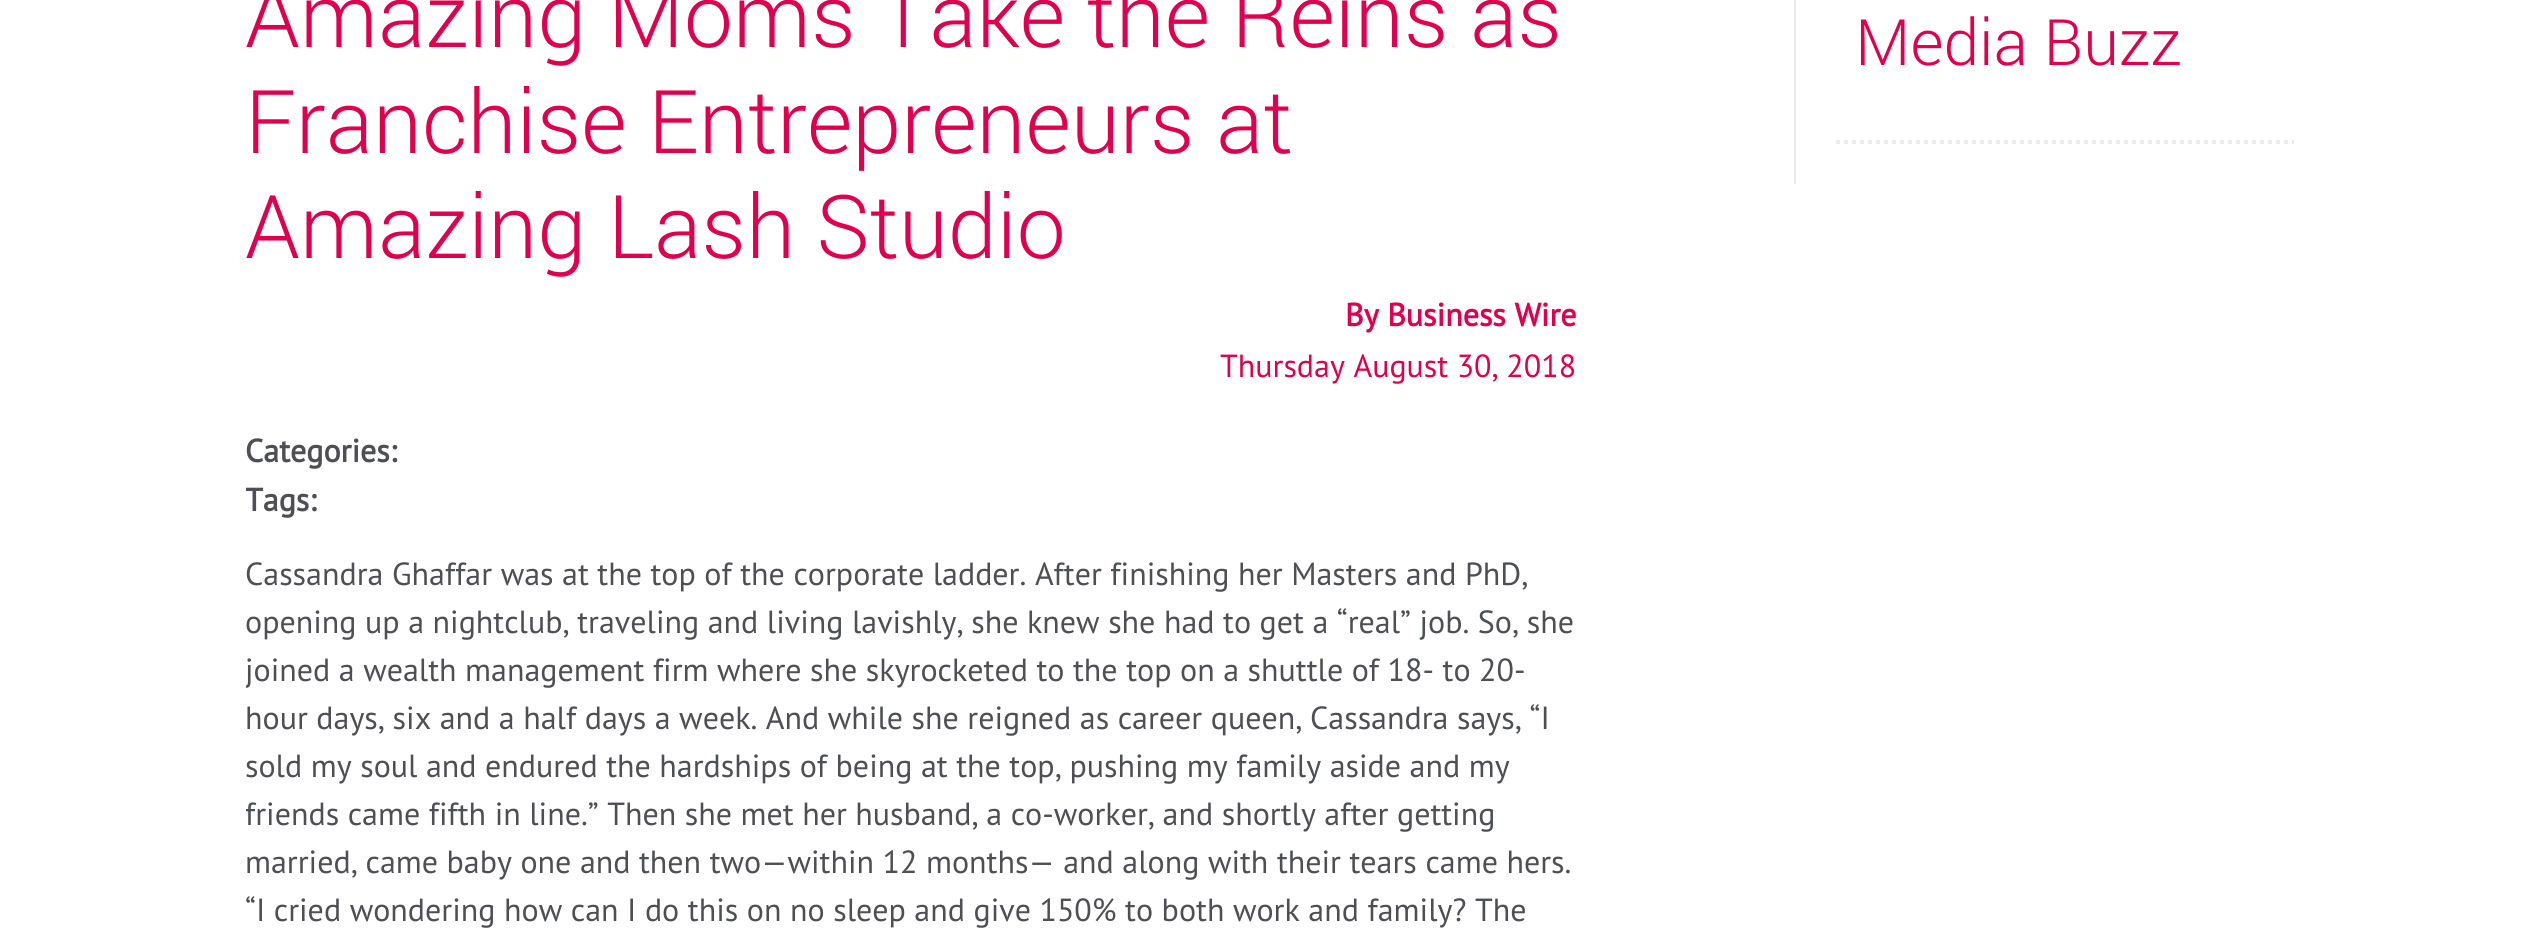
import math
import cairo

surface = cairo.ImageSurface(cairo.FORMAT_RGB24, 2537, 946)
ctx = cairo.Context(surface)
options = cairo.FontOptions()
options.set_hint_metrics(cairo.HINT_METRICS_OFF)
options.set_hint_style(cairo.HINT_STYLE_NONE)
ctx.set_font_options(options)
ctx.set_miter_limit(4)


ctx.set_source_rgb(1, 1, 1)
ctx.paint()
ctx.select_font_face("Roboto Light")
ctx.set_font_size(88)
ctx.set_source_rgb(0.878, 0, 0.302)
ctx.move_to(245, 47)
ctx.show_text("Amazing Moms Take the Reins as")
ctx.move_to(245, 153)
ctx.show_text("Franchise Entrepreneurs at")
ctx.move_to(245, 258)
ctx.show_text("Amazing Lash Studio")
ctx.select_font_face("PT Sans", cairo.FONT_SLANT_NORMAL, cairo.FONT_WEIGHT_BOLD)
ctx.set_font_size(32)
ctx.move_to(1345, 326)
ctx.show_text("By Business Wire")
ctx.select_font_face("PT Sans")
ctx.move_to(1220, 377)
ctx.show_text("Thursday August 30, 2018")
ctx.select_font_face("PT Sans", cairo.FONT_SLANT_NORMAL, cairo.FONT_WEIGHT_BOLD)
ctx.set_source_rgb(0.302, 0.31, 0.325)
ctx.move_to(245, 462)
ctx.show_text("Categories:")
ctx.save()
ctx.rectangle(246, 422, 1330, 128)
ctx.clip()
ctx.move_to(245, 511)
ctx.show_text("Tags:")
ctx.restore()
ctx.select_font_face("PT Sans")
ctx.move_to(245, 585)
ctx.show_text("Cassandra Ghaffar was at the top of the corporate ladder. After finishing her Masters and PhD,")
ctx.move_to(245, 633)
ctx.show_text("opening up a nightclub, traveling and living lavishly, she knew she had to get a “real” job. So, she")
ctx.save()
ctx.rectangle(246, 0, 2048, 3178)
ctx.clip()
ctx.move_to(245, 681)
ctx.show_text("joined a wealth management firm where she skyrocketed to the top on a shuttle of 18- to 20-")
ctx.restore()
ctx.move_to(245, 729)
ctx.show_text("hour days, six and a half days a week. And while she reigned as career queen, Cassandra says, “I")
ctx.move_to(245, 777)
ctx.show_text("sold my soul and endured the hardships of being at the top, pushing my family aside and my")
ctx.save()
ctx.rectangle(246, 0, 2048, 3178)
ctx.clip()
ctx.move_to(245, 825)
ctx.show_text("friends came fifth in line.” Then she met her husband, a co-worker, and shortly after getting")
ctx.restore()
ctx.move_to(245, 873)
ctx.show_text("married, came baby one and then two—within 12 months— and along with their tears came hers.")
ctx.move_to(245, 921)
ctx.show_text("“I cried wondering how can I do this on no sleep and give 150% to both work and family? The")
ctx.set_source_rgb(0.918, 0.918, 0.918)
ctx.rectangle(1794, 0, 2, 184)
ctx.fill()
ctx.new_path()
ctx.move_to(1836, 142)
ctx.line_to(2294, 142)
ctx.set_line_width(4)
ctx.set_dash([4, 4])
ctx.stroke()
ctx.select_font_face("Roboto Light")
ctx.set_font_size(64)
ctx.set_source_rgb(0.878, 0, 0.302)
ctx.move_to(1855, 65)
ctx.show_text("Media Buzz")
surface.write_to_png("page.png")
